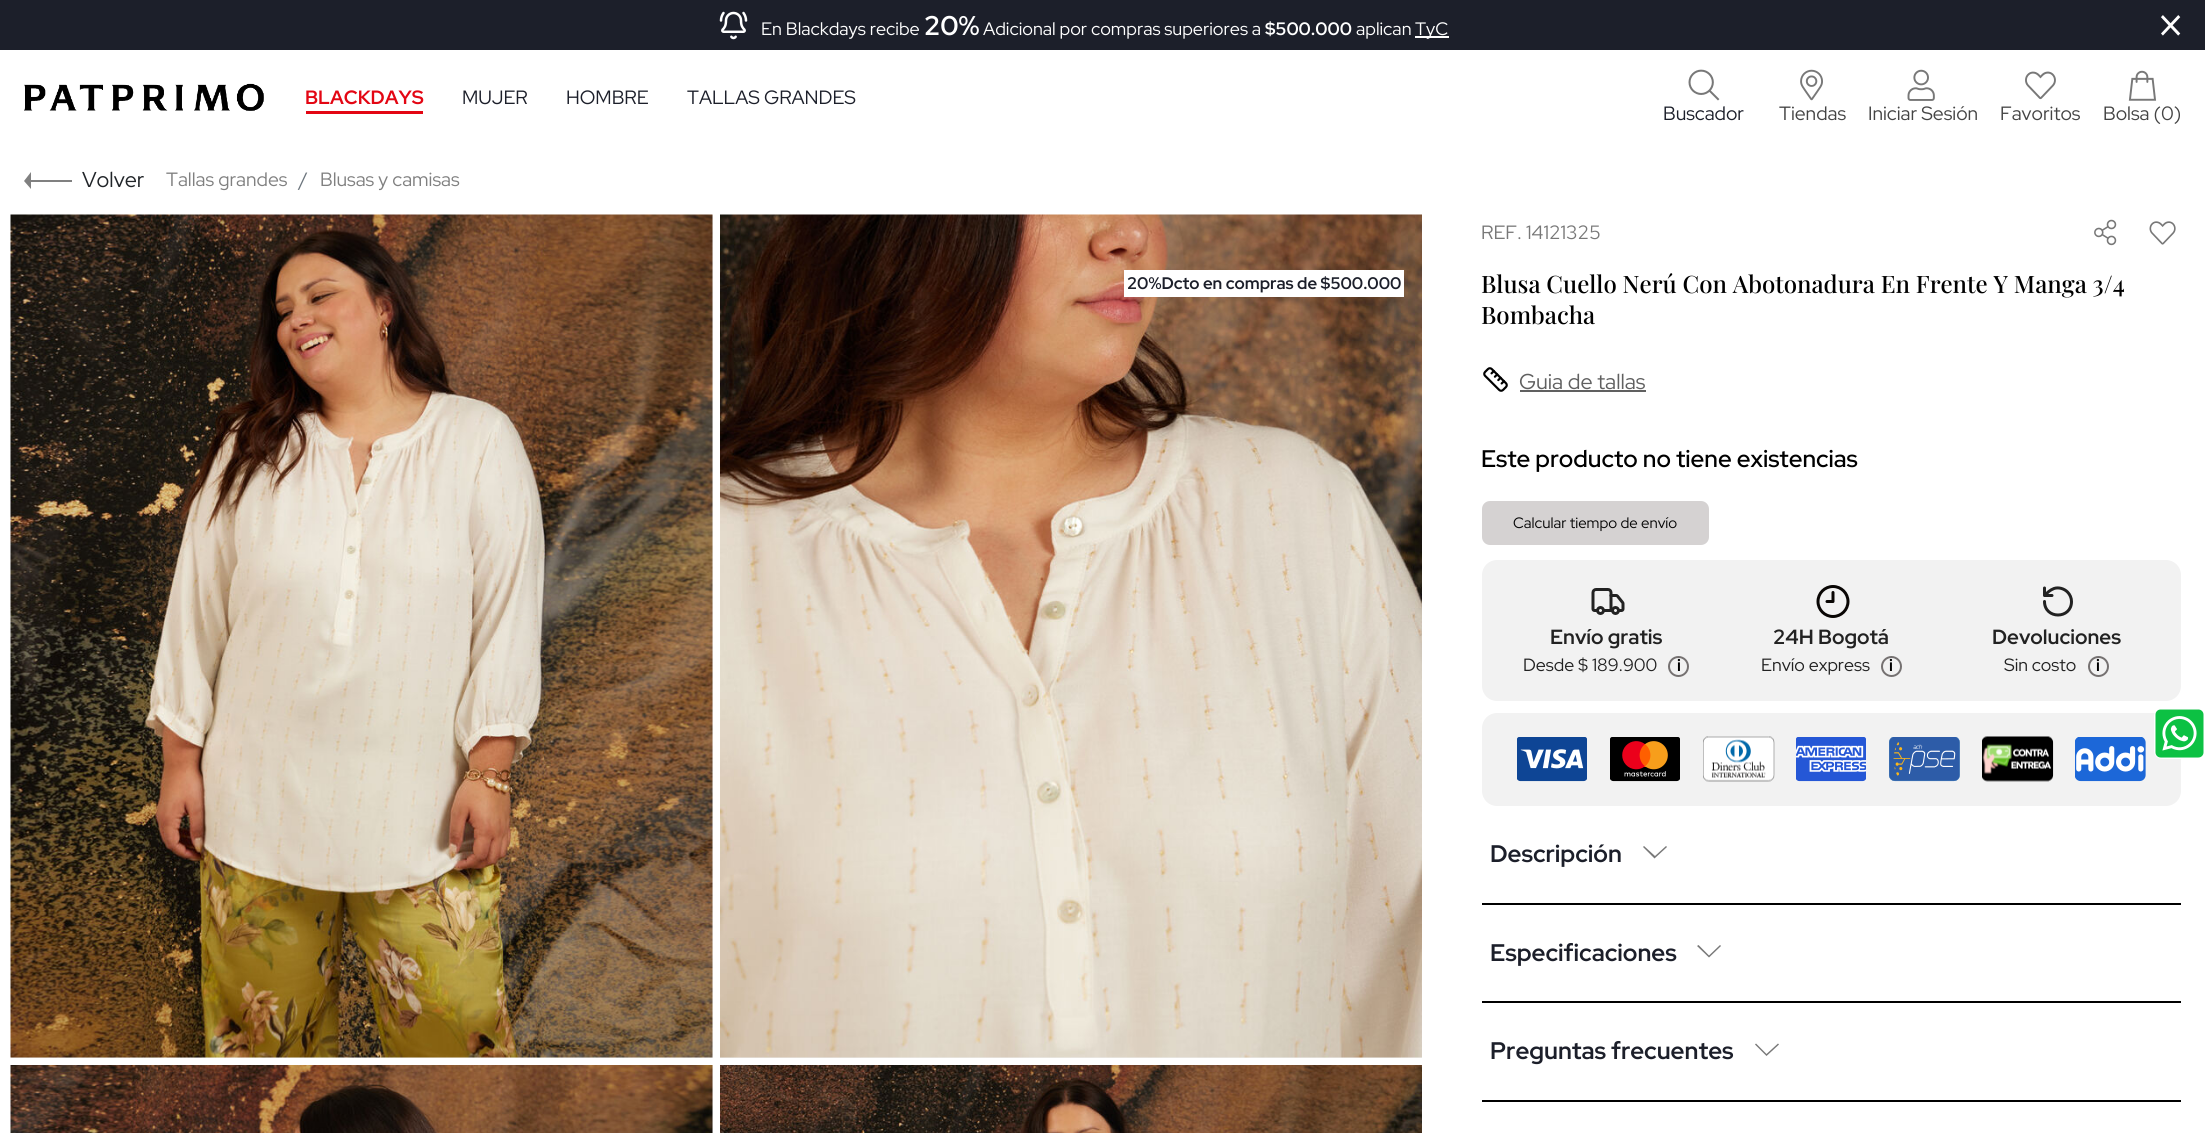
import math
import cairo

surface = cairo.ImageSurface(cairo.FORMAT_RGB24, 2205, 1133)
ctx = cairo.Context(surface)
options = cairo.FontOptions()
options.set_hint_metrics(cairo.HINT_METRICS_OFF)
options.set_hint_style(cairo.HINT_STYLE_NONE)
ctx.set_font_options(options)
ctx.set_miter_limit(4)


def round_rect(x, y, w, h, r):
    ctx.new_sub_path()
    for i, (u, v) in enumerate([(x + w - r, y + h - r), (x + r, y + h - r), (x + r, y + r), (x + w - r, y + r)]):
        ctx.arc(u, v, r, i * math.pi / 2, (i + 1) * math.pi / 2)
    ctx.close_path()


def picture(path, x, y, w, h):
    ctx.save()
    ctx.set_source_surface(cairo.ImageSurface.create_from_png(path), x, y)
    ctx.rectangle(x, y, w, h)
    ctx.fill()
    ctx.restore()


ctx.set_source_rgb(1, 1, 1)
ctx.paint()
ctx.set_source_rgb(0.11, 0.122, 0.165)
ctx.rectangle(0, 0, 2205, 50)
ctx.fill()
picture("img1.png", 719, 11, 29, 29)
ctx.select_font_face("Red Hat Display")
ctx.set_font_size(18)
ctx.set_source_rgb(1, 1, 1)
ctx.move_to(761, 35)
ctx.show_text("En Blackdays recibe")
ctx.select_font_face("Red Hat Display", cairo.FONT_SLANT_NORMAL, cairo.FONT_WEIGHT_BOLD)
ctx.set_font_size(27)
ctx.move_to(924, 35)
ctx.show_text("20%")
ctx.select_font_face("Red Hat Display")
ctx.set_font_size(18)
ctx.move_to(983, 35)
ctx.show_text("Adicional por compras superiores a")
ctx.select_font_face("Red Hat Display", cairo.FONT_SLANT_NORMAL, cairo.FONT_WEIGHT_BOLD)
ctx.move_to(1265, 35)
ctx.show_text("$500.000")
ctx.select_font_face("Red Hat Display")
ctx.move_to(1356, 35)
ctx.show_text("aplican")
ctx.rectangle(1415, 36, 34, 2)
ctx.fill()
ctx.move_to(1415, 35)
ctx.show_text("TyC")
ctx.set_font_size(52)
ctx.move_to(2155, 44)
ctx.show_text("×")
picture("img2.png", 24, 83, 240, 28)
ctx.select_font_face("Red Hat Display", cairo.FONT_SLANT_NORMAL, cairo.FONT_WEIGHT_BOLD)
ctx.set_font_size(19.25)
ctx.set_source_rgb(0.89, 0.024, 0.075)
ctx.move_to(305, 104)
ctx.show_text("BLACKDAYS")
ctx.rectangle(306, 111, 117, 3)
ctx.fill()
ctx.select_font_face("Red Hat Display")
ctx.set_source_rgb(0.11, 0.122, 0.165)
ctx.move_to(462, 104)
ctx.show_text("MUJER")
ctx.move_to(566, 104)
ctx.show_text("HOMBRE")
ctx.move_to(687, 104)
ctx.show_text("TALLAS GRANDES")
picture("img3.png", 1688, 69, 32, 32)
ctx.move_to(1663, 120)
ctx.show_text("Buscador")
picture("img4.png", 1800, 69, 23, 32)
ctx.set_source_rgb(0.267, 0.267, 0.267)
ctx.move_to(1779, 120)
ctx.show_text("Tiendas")
picture("img5.png", 1907, 69, 28, 32)
ctx.move_to(1868, 120)
ctx.show_text("Iniciar Sesión")
picture("img6.png", 2025, 71, 31, 29)
ctx.move_to(2000, 120)
ctx.show_text("Favoritos")
picture("img7.png", 2128, 70, 29, 31)
ctx.move_to(2103, 120)
ctx.show_text("Bolsa (0)")
ctx.set_source_rgb(0.502, 0.502, 0.502)
ctx.new_path()
ctx.move_to(31, 189)
ctx.line_to(31, 172)
ctx.line_to(24, 181)
ctx.close_path()
ctx.move_to(72, 180)
ctx.line_to(30, 180)
ctx.line_to(30, 182)
ctx.line_to(72, 182)
ctx.close_path()
ctx.fill()
ctx.set_font_size(21.5)
ctx.set_source_rgb(0.129, 0.145, 0.161)
ctx.move_to(82, 187)
ctx.show_text("Volver")
ctx.set_font_size(19.25)
ctx.set_source_rgb(0.502, 0.502, 0.502)
ctx.move_to(166, 186)
ctx.show_text("Tallas grandes")
ctx.set_source_rgb(0.424, 0.459, 0.49)
ctx.move_to(299, 186)
ctx.show_text("/")
ctx.set_source_rgb(0.502, 0.502, 0.502)
ctx.move_to(320, 186)
ctx.show_text("Blusas y camisas")
ctx.set_source_rgb(0.929, 0.929, 0.929)
ctx.rectangle(11, 1057, 141, 1)
ctx.fill()
gradient = cairo.LinearGradient(100, 503, 1606, 769)
gradient.add_color_stop_rgba(0.4, 0.933, 0.933, 0.933, 1)
gradient.add_color_stop_rgba(0.5, 0.965, 0.965, 0.965, 1)
gradient.add_color_stop_rgba(0.6, 0.933, 0.933, 0.933, 1)
ctx.set_source(gradient)
ctx.rectangle(152, 215, 561, 843)
ctx.fill()
picture("img8.png", 10, 214, 703, 844)
ctx.set_source_rgb(0.929, 0.929, 0.929)
ctx.rectangle(720, 1057, 141, 1)
ctx.fill()
gradient = cairo.LinearGradient(809, 503, 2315, 769)
gradient.add_color_stop_rgba(0.4, 0.933, 0.933, 0.933, 1)
gradient.add_color_stop_rgba(0.5, 0.965, 0.965, 0.965, 1)
gradient.add_color_stop_rgba(0.6, 0.933, 0.933, 0.933, 1)
ctx.set_source(gradient)
ctx.rectangle(861, 1057, 561, 1)
ctx.fill()
picture("img9.png", 720, 214, 702, 844)
ctx.set_source_rgb(0.929, 0.929, 0.929)
ctx.rectangle(712, 1065, 1, 68)
ctx.fill()
picture("img10.png", 10, 1065, 703, 68)
picture("img11.png", 720, 1065, 702, 68)
ctx.set_source_rgb(1, 1, 1)
ctx.rectangle(1124, 270, 280, 27)
ctx.fill()
ctx.select_font_face("Red Hat Display", cairo.FONT_SLANT_NORMAL, cairo.FONT_WEIGHT_BOLD)
ctx.set_font_size(16.75)
ctx.set_source_rgb(0.11, 0.122, 0.165)
ctx.move_to(1127, 289)
ctx.show_text("20%Dcto en compras de $500.000")
ctx.select_font_face("Red Hat Display")
ctx.set_font_size(19.25)
ctx.set_source_rgb(0.471, 0.471, 0.471)
ctx.move_to(1481, 239)
ctx.show_text("REF. 14121325")
picture("img12.png", 2094, 219, 23, 27)
picture("img13.png", 2149, 221, 27, 24)
ctx.select_font_face("Playfair Display Medium")
ctx.set_font_size(24)
ctx.set_source_rgb(0, 0, 0)
ctx.move_to(1481, 293)
ctx.show_text("Blusa Cuello Nerú Con Abotonadura En Frente Y Manga 3/4")
ctx.move_to(1481, 324)
ctx.show_text("Bombacha")
picture("img14.png", 1483, 367, 25, 25)
ctx.select_font_face("Red Hat Display")
ctx.set_font_size(21.5)
ctx.set_source_rgb(0.376, 0.376, 0.376)
ctx.move_to(1519, 389)
ctx.show_text("Guia de tallas")
ctx.rectangle(1520, 390, 126, 2)
ctx.fill()
ctx.select_font_face("Red Hat Display SemiBold")
ctx.set_font_size(24)
ctx.set_source_rgb(0, 0, 0)
ctx.move_to(1481, 467)
ctx.show_text("Este producto no tiene existencias")
ctx.set_source_rgb(0.835, 0.824, 0.824)
round_rect(1482, 501, 227, 44, 8)
ctx.fill()
ctx.select_font_face("Red Hat Display")
ctx.set_font_size(15)
ctx.set_source_rgb(0.027, 0.027, 0.027)
ctx.move_to(1513, 528)
ctx.show_text("Calcular tiempo de envío")
ctx.set_source_rgb(0.949, 0.949, 0.949)
round_rect(1482, 560, 699, 141, 15)
ctx.fill()
picture("img15.png", 1591, 588, 34, 27)
ctx.select_font_face("Red Hat Display", cairo.FONT_SLANT_NORMAL, cairo.FONT_WEIGHT_BOLD)
ctx.set_font_size(20.5)
ctx.set_source_rgb(0.133, 0.133, 0.133)
ctx.move_to(1550, 644)
ctx.show_text("Envío gratis")
ctx.select_font_face("Red Hat Display")
ctx.set_font_size(17.75)
ctx.move_to(1523, 671)
ctx.show_text("Desde $ 189.900")
ctx.new_path()
ctx.arc(1678.5, 666.5, 9.5, 0, 2 * math.pi)
ctx.set_source_rgb(0.459, 0.443, 0.443)
ctx.stroke()
ctx.select_font_face("Red Hat Display", cairo.FONT_SLANT_NORMAL, cairo.FONT_WEIGHT_BOLD)
ctx.set_font_size(16.75)
ctx.set_source_rgb(0, 0, 0)
ctx.move_to(1677, 671)
ctx.show_text("i")
ctx.new_path()
ctx.move_to(1833, 592.5)
ctx.line_to(1833, 601.5)
ctx.line_to(1827, 601.5)
ctx.set_source_rgb(0.039, 0.027, 0.016)
ctx.set_line_width(3)
ctx.set_line_cap(cairo.LINE_CAP_ROUND)
ctx.set_line_join(cairo.LINE_JOIN_ROUND)
ctx.stroke()
ctx.arc(1833, 601.5, 15, 0, 2 * math.pi)
ctx.set_line_cap(cairo.LINE_CAP_BUTT)
ctx.set_line_join(cairo.LINE_JOIN_MITER)
ctx.stroke()
ctx.set_font_size(20.5)
ctx.set_source_rgb(0.133, 0.133, 0.133)
ctx.move_to(1773, 644)
ctx.show_text("24H Bogotá")
ctx.select_font_face("Red Hat Display")
ctx.set_font_size(17.75)
ctx.move_to(1761, 671)
ctx.show_text("Envío express")
ctx.new_path()
ctx.arc(1891.5, 666.5, 9.5, 0, 2 * math.pi)
ctx.set_source_rgb(0.459, 0.443, 0.443)
ctx.set_line_width(2)
ctx.stroke()
ctx.select_font_face("Red Hat Display", cairo.FONT_SLANT_NORMAL, cairo.FONT_WEIGHT_BOLD)
ctx.set_font_size(16.75)
ctx.set_source_rgb(0, 0, 0)
ctx.move_to(1889, 671)
ctx.show_text("i")
ctx.new_path()
ctx.move_to(2044.5, 601.5)
ctx.curve_to(2044.5, 619.5, 2071.5, 619.5, 2071.5, 601.5)
ctx.curve_to(2071.5, 598, 2070, 594.5, 2067.5, 592)
ctx.curve_to(2064, 588.5, 2058.5, 587, 2054, 588.5)
ctx.curve_to(2050, 590, 2047.5, 592.5, 2044.5, 595.5)
ctx.move_to(2044.5, 588)
ctx.line_to(2044.5, 595.5)
ctx.line_to(2052, 595.5)
ctx.set_source_rgb(0.133, 0.133, 0.133)
ctx.set_line_width(3)
ctx.set_line_cap(cairo.LINE_CAP_ROUND)
ctx.set_line_join(cairo.LINE_JOIN_ROUND)
ctx.stroke()
ctx.set_font_size(20.5)
ctx.move_to(1992, 644)
ctx.show_text("Devoluciones")
ctx.select_font_face("Red Hat Display")
ctx.set_font_size(17.75)
ctx.move_to(2004, 671)
ctx.show_text("Sin costo")
ctx.new_path()
ctx.arc(2098.5, 666.5, 9.5, 0, 2 * math.pi)
ctx.set_source_rgb(0.459, 0.443, 0.443)
ctx.set_line_width(2)
ctx.set_line_cap(cairo.LINE_CAP_BUTT)
ctx.set_line_join(cairo.LINE_JOIN_MITER)
ctx.stroke()
ctx.select_font_face("Red Hat Display", cairo.FONT_SLANT_NORMAL, cairo.FONT_WEIGHT_BOLD)
ctx.set_font_size(16.75)
ctx.set_source_rgb(0, 0, 0)
ctx.move_to(2096, 671)
ctx.show_text("i")
ctx.set_source_rgb(0.949, 0.949, 0.949)
round_rect(1482, 713, 699, 93, 15)
ctx.fill()
picture("img16.png", 1517, 737, 70, 45)
picture("img17.png", 1610, 737, 70, 45)
picture("img18.png", 1703, 736, 72, 46)
picture("img19.png", 1796, 737, 70, 45)
picture("img20.png", 1889, 737, 71, 45)
picture("img21.png", 1982, 736, 72, 46)
picture("img22.png", 2075, 737, 71, 45)
ctx.set_source_rgb(0, 0, 0)
ctx.rectangle(1482, 903, 699, 2)
ctx.fill()
ctx.set_font_size(24)
ctx.set_source_rgb(0.11, 0.122, 0.165)
ctx.move_to(1490, 862)
ctx.show_text("Descripción")
ctx.set_source_rgb(0.471, 0.471, 0.471)
ctx.new_path()
ctx.move_to(1667, 847)
ctx.line_to(1666, 846)
ctx.line_to(1655, 856)
ctx.line_to(1644, 846)
ctx.line_to(1643, 847)
ctx.line_to(1654.5, 858.5)
ctx.close_path()
ctx.fill()
ctx.set_source_rgb(0, 0, 0)
ctx.rectangle(1482, 1001, 699, 2)
ctx.fill()
ctx.set_source_rgb(0.11, 0.122, 0.165)
ctx.move_to(1490, 961)
ctx.show_text("Especificaciones")
ctx.set_source_rgb(0.471, 0.471, 0.471)
ctx.new_path()
ctx.move_to(1721, 946)
ctx.line_to(1720, 945)
ctx.line_to(1709, 955.5)
ctx.line_to(1698.5, 945)
ctx.line_to(1697, 946)
ctx.line_to(1709, 957.5)
ctx.close_path()
ctx.fill()
ctx.set_source_rgb(0, 0, 0)
ctx.rectangle(1482, 1100, 699, 2)
ctx.fill()
ctx.set_source_rgb(0.11, 0.122, 0.165)
ctx.move_to(1490, 1059)
ctx.show_text("Preguntas frecuentes")
ctx.set_source_rgb(0.471, 0.471, 0.471)
ctx.new_path()
ctx.move_to(1779, 1044.5)
ctx.line_to(1778, 1043.5)
ctx.line_to(1766.5, 1054)
ctx.line_to(1756, 1043.5)
ctx.line_to(1755, 1044.5)
ctx.line_to(1766.5, 1056)
ctx.close_path()
ctx.fill()
ctx.set_source_rgb(1, 1, 1)
ctx.new_path()
ctx.move_to(2162, 708)
ctx.line_to(2205, 708)
ctx.line_to(2205, 759)
ctx.line_to(2162, 759)
ctx.curve_to(2157.5, 759, 2154, 755.5, 2154, 751)
ctx.line_to(2154, 716)
ctx.curve_to(2154, 711.5, 2157.5, 708, 2162, 708)
ctx.close_path()
ctx.fill()
picture("img23.png", 2155, 709, 49, 49)
surface.write_to_png("page.png")
